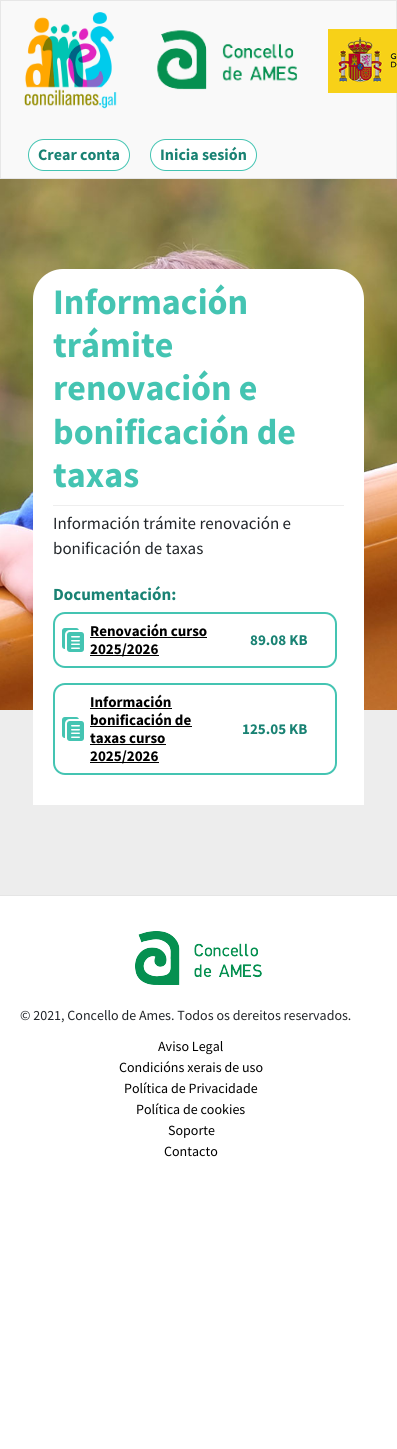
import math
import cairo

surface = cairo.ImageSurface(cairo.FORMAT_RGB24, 397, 1449)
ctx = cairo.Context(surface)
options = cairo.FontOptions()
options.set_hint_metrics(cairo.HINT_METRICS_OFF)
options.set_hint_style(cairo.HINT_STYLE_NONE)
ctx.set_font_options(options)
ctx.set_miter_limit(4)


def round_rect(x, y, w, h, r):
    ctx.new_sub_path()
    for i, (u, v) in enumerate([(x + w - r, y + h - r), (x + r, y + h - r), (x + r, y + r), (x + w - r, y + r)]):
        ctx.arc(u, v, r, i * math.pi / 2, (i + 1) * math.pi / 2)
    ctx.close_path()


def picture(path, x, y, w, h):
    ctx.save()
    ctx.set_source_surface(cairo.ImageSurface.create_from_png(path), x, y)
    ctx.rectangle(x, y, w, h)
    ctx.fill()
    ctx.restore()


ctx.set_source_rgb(1, 1, 1)
ctx.paint()
ctx.set_source_rgb(0.973, 0.973, 0.973)
ctx.rectangle(0.5, 0.5, 396, 178)
ctx.fill_preserve()
ctx.set_source_rgb(0.906, 0.906, 0.906)
ctx.set_line_width(1)
ctx.stroke()
picture("img1.png", 24, 12, 93, 97)
picture("img2.png", 157, 30, 141, 60)
picture("img3.png", 328, 29, 69, 64)
ctx.set_source_rgb(1, 1, 1)
round_rect(28.5, 139.5, 101, 31, 15.5)
ctx.fill_preserve()
ctx.set_source_rgb(0.267, 0.769, 0.698)
ctx.stroke()
ctx.select_font_face("Source Sans Pro", cairo.FONT_SLANT_NORMAL, cairo.FONT_WEIGHT_BOLD)
ctx.set_font_size(16)
ctx.set_source_rgb(0.098, 0.51, 0.451)
ctx.move_to(38, 160)
ctx.show_text("Crear conta")
ctx.set_source_rgb(1, 1, 1)
round_rect(150.5, 139.5, 106, 31, 15.5)
ctx.fill_preserve()
ctx.set_source_rgb(0.267, 0.769, 0.698)
ctx.stroke()
ctx.set_source_rgb(0.098, 0.51, 0.451)
ctx.move_to(160, 160)
ctx.show_text("Inicia sesión")
ctx.set_source_rgb(0.929, 0.929, 0.929)
ctx.rectangle(0, 710, 397, 185)
ctx.fill()
picture("img4.png", 0, 179, 397, 531)
ctx.set_source_rgb(1, 1, 1)
ctx.new_path()
ctx.move_to(63, 269)
ctx.line_to(334, 269)
ctx.curve_to(350.5, 269, 364, 282.5, 364, 299)
ctx.line_to(364, 805)
ctx.line_to(33, 805)
ctx.line_to(33, 299)
ctx.curve_to(33, 282.5, 46.5, 269, 63, 269)
ctx.close_path()
ctx.fill()
ctx.set_source_rgb(0.933, 0.933, 0.933)
ctx.rectangle(53, 505, 291, 1)
ctx.fill()
ctx.set_font_size(36)
ctx.set_source_rgb(0.267, 0.769, 0.698)
ctx.move_to(53, 314)
ctx.show_text("Información")
ctx.move_to(53, 357)
ctx.show_text("trámite")
ctx.move_to(53, 400)
ctx.show_text("renovación e")
ctx.move_to(53, 444)
ctx.show_text("bonificación de")
ctx.move_to(53, 487)
ctx.show_text("taxas")
ctx.select_font_face("Source Sans Pro")
ctx.set_font_size(17)
ctx.set_source_rgb(0.129, 0.145, 0.161)
ctx.move_to(53, 529)
ctx.show_text("Información trámite renovación e")
ctx.move_to(53, 554)
ctx.show_text("bonificación de taxas")
ctx.select_font_face("Source Sans Pro", cairo.FONT_SLANT_NORMAL, cairo.FONT_WEIGHT_BOLD)
ctx.set_source_rgb(0.098, 0.51, 0.451)
ctx.move_to(53, 600)
ctx.show_text("Documentación:")
picture("img5.png", 62, 628, 22, 24)
round_rect(54, 613, 282, 54, 11)
ctx.set_source_rgb(0.267, 0.769, 0.698)
ctx.set_line_width(2)
ctx.stroke()
ctx.set_font_size(15)
ctx.set_source_rgb(0, 0, 0)
ctx.move_to(90, 636)
ctx.show_text("Renovación curso")
ctx.rectangle(90, 637, 117, 1)
ctx.fill()
ctx.rectangle(90, 655, 69, 1)
ctx.fill()
ctx.move_to(90, 654)
ctx.show_text("2025/2026")
ctx.set_source_rgb(0.098, 0.51, 0.451)
ctx.move_to(250, 645)
ctx.show_text("89.08 KB")
picture("img5.png", 62, 717, 22, 24)
round_rect(54, 684, 282, 90, 11)
ctx.set_source_rgb(0.267, 0.769, 0.698)
ctx.stroke()
ctx.set_source_rgb(0, 0, 0)
ctx.move_to(90, 707)
ctx.show_text("Información")
ctx.rectangle(90, 708, 82, 1)
ctx.fill()
ctx.move_to(90, 725)
ctx.show_text("bonificación de")
ctx.rectangle(90, 726, 102, 1)
ctx.fill()
ctx.move_to(90, 743)
ctx.show_text("taxas curso")
ctx.rectangle(90, 744, 76, 1)
ctx.fill()
ctx.rectangle(90, 762, 69, 1)
ctx.fill()
ctx.move_to(90, 761)
ctx.show_text("2025/2026")
ctx.set_source_rgb(0.098, 0.51, 0.451)
ctx.move_to(242, 734)
ctx.show_text("125.05 KB")
ctx.set_source_rgb(0.898, 0.898, 0.898)
ctx.rectangle(0, 895, 397, 1)
ctx.fill()
picture("img6.png", 135, 931, 127, 54)
ctx.select_font_face("Source Sans Pro")
ctx.set_font_size(14)
ctx.set_source_rgb(0.129, 0.145, 0.161)
ctx.move_to(20, 1020)
ctx.show_text("© 2021, Concello de Ames. Todos os dereitos reservados.")
ctx.set_source_rgb(0, 0, 0)
ctx.move_to(158, 1051)
ctx.show_text("Aviso Legal")
ctx.move_to(119, 1072)
ctx.show_text("Condicións xerais de uso")
ctx.move_to(124, 1093)
ctx.show_text("Política de Privacidade")
ctx.move_to(136, 1114)
ctx.show_text("Política de cookies")
ctx.move_to(168, 1135)
ctx.show_text("Soporte")
ctx.move_to(164, 1156)
ctx.show_text("Contacto")
surface.write_to_png("page.png")
